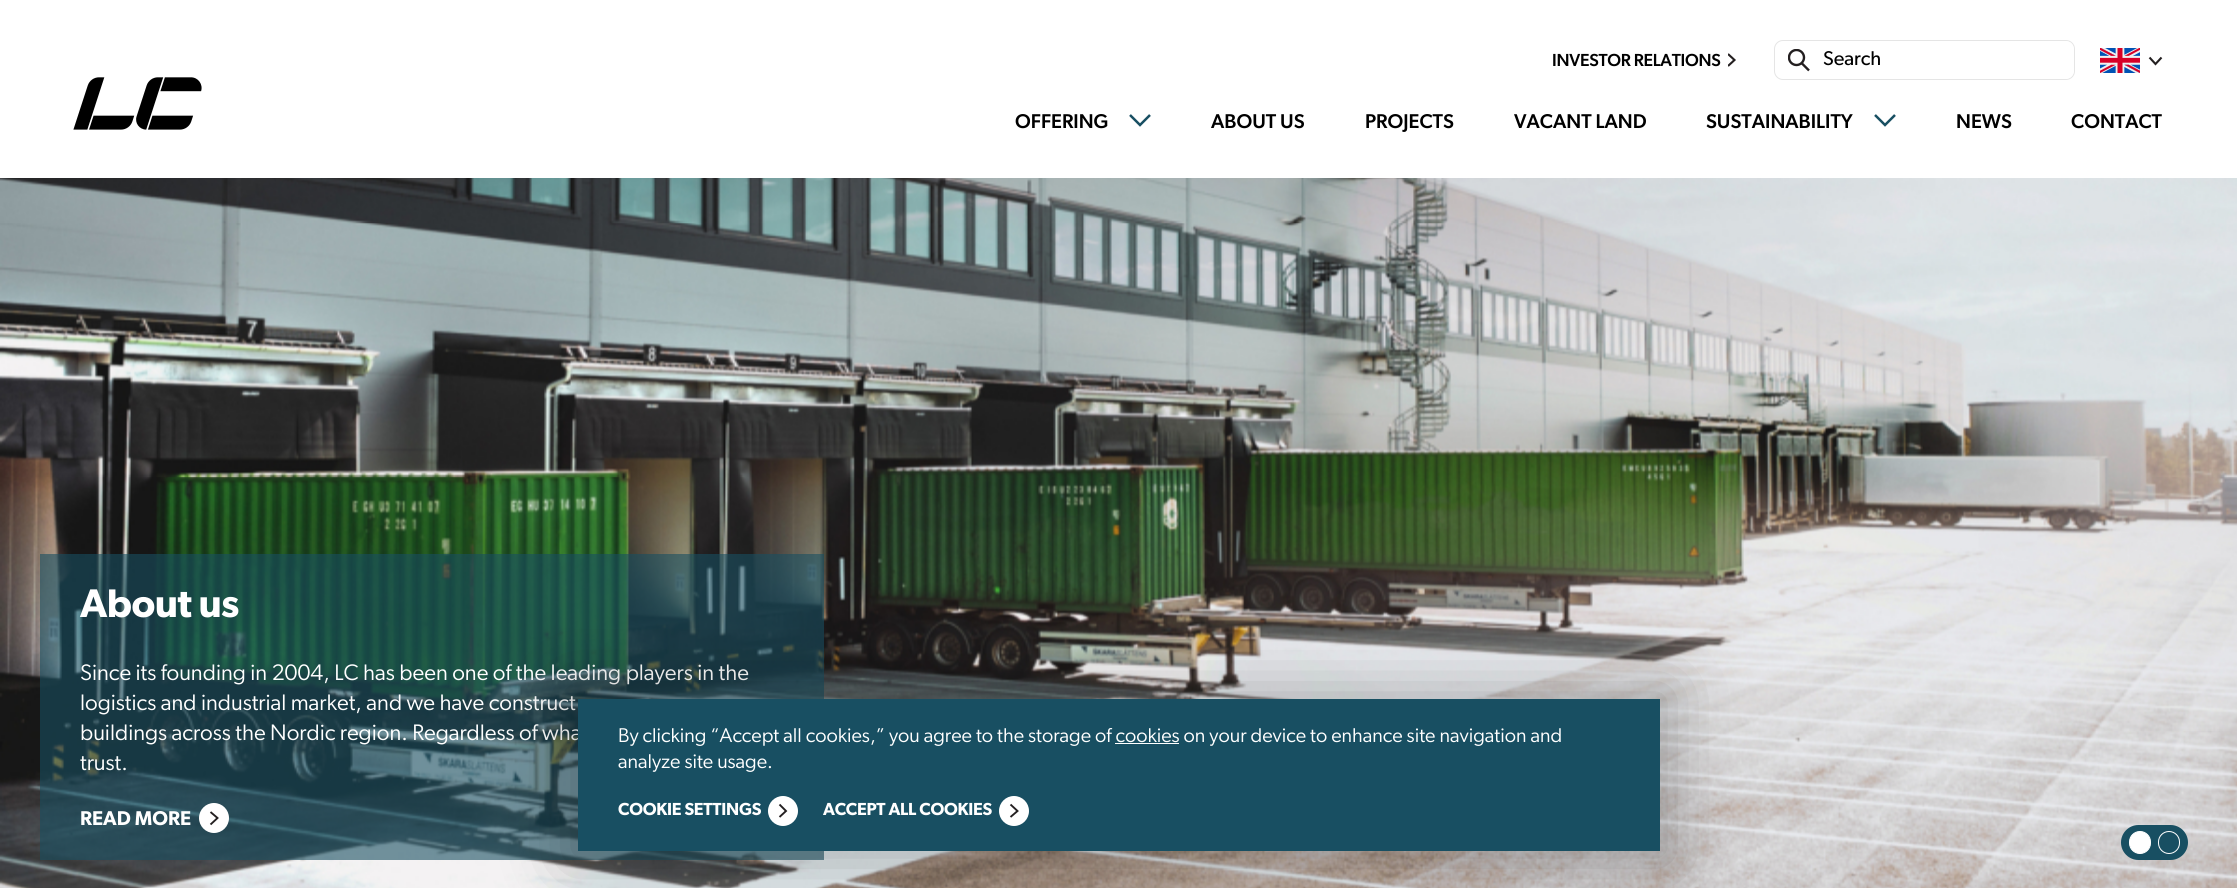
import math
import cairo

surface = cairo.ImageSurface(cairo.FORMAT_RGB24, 2237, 888)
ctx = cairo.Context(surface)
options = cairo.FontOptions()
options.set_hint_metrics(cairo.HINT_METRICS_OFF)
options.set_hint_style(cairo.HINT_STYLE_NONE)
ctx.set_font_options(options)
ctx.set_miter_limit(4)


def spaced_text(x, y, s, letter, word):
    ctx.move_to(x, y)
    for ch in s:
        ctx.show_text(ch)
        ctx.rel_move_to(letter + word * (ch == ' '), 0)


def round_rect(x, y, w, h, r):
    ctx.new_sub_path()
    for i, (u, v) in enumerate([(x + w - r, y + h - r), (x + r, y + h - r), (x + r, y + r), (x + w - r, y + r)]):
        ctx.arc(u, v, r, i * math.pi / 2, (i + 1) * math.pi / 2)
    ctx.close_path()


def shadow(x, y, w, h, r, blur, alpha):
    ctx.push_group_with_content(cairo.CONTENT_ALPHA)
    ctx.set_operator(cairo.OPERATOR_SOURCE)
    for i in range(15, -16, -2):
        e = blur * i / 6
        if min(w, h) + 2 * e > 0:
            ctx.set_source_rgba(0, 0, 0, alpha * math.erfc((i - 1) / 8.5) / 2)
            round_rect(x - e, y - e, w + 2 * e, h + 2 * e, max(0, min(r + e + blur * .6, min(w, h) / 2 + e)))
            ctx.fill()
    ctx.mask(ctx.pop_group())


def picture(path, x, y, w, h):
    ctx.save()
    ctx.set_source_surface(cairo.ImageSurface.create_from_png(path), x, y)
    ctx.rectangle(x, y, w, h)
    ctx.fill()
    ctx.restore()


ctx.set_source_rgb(1, 1, 1)
ctx.paint()
ctx.select_font_face("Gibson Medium")
ctx.set_font_size(17.5)
ctx.set_source_rgb(0, 0, 0)
spaced_text(1552, 66, "INVESTOR RELATIONS", -0.25, 0)
ctx.save()
ctx.rectangle(1728, 53, 8, 15)
ctx.clip()
ctx.new_path()
ctx.move_to(1728, 54)
ctx.line_to(1734.5, 60)
ctx.line_to(1728, 66)
ctx.set_source_rgb(0.137, 0.122, 0.125)
ctx.set_line_width(2.1)
ctx.stroke()
ctx.restore()
round_rect(1774.5, 40.5, 300, 39, 8.5)
ctx.set_source_rgb(0.898, 0.898, 0.898)
ctx.set_line_width(1)
ctx.stroke()
ctx.save()
ctx.rectangle(1788, 49, 22, 22)
ctx.clip()
ctx.arc(1796.5, 57.5, 7.5, 0, 2 * math.pi)
ctx.set_source_rgb(0.137, 0.122, 0.125)
ctx.set_line_width(2.4)
ctx.stroke()
ctx.restore()
ctx.new_path()
ctx.move_to(1809, 70.5)
ctx.line_to(1801.5, 63)
ctx.set_source_rgb(0.137, 0.122, 0.125)
ctx.set_line_width(2.4)
ctx.stroke()
ctx.set_source_rgb(1, 1, 1)
round_rect(1810, 41, 264, 38, 9)
ctx.fill()
ctx.select_font_face("Gibson")
ctx.set_font_size(20)
ctx.set_source_rgb(0, 0, 0)
ctx.move_to(1823, 65)
ctx.show_text("Search")
picture("img1.png", 2100, 48, 40, 25)
ctx.new_path()
ctx.move_to(2161.5, 57.5)
ctx.line_to(2155.5, 64)
ctx.line_to(2149.5, 57.5)
ctx.set_source_rgb(0.137, 0.122, 0.125)
ctx.set_line_width(2.1)
ctx.stroke()
picture("img2.png", 73, 77, 129, 53)
ctx.select_font_face("Gibson Medium")
ctx.set_source_rgb(0, 0, 0)
ctx.move_to(1015, 128)
ctx.show_text("OFFERING")
ctx.new_path()
ctx.move_to(1130, 115)
ctx.line_to(1140, 125)
ctx.line_to(1150, 115)
ctx.set_source_rgb(0.094, 0.31, 0.384)
ctx.set_line_width(2.5)
ctx.stroke()
ctx.set_source_rgb(0, 0, 0)
ctx.move_to(1211, 128)
ctx.show_text("ABOUT US")
ctx.move_to(1365, 128)
ctx.show_text("PROJECTS")
ctx.move_to(1514, 128)
ctx.show_text("VACANT LAND")
ctx.move_to(1706, 128)
ctx.show_text("SUSTAINABILITY")
ctx.new_path()
ctx.move_to(1875, 115)
ctx.line_to(1885, 125)
ctx.line_to(1895, 115)
ctx.set_source_rgb(0.094, 0.31, 0.384)
ctx.stroke()
ctx.set_source_rgb(0, 0, 0)
ctx.move_to(1956, 128)
ctx.show_text("NEWS")
ctx.move_to(2071, 128)
ctx.show_text("CONTACT")
picture("img3.png", 0, 178, 2237, 710)
ctx.set_source_rgba(0.094, 0.31, 0.384, 0.6)
ctx.rectangle(40, 554, 784, 306)
ctx.fill()
ctx.select_font_face("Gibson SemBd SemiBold")
ctx.set_font_size(40)
ctx.set_source_rgb(1, 1, 1)
spaced_text(80, 617, "About us", -0.5, 0)
ctx.select_font_face("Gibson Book")
ctx.set_font_size(22.5)
ctx.move_to(80, 680)
ctx.show_text("Since its founding in 2004, LC has been one of the leading players in the")
ctx.move_to(80, 710)
ctx.show_text("logistics and industrial market, and we have construct")
ctx.move_to(80, 740)
ctx.show_text("buildings across the Nordic region. Regardless of wha")
ctx.move_to(80, 770)
ctx.show_text("trust.")
ctx.select_font_face("Gibson SemBd SemiBold")
ctx.set_font_size(20)
ctx.move_to(80, 825)
ctx.show_text("READ MORE")
ctx.new_path()
ctx.arc(214, 818, 15, 0, 2 * math.pi)
ctx.fill()
ctx.new_path()
ctx.move_to(210.5, 812)
ctx.line_to(217.5, 818)
ctx.line_to(210.5, 824.5)
ctx.set_source_rgb(0.137, 0.122, 0.125)
ctx.set_line_width(1.9)
ctx.stroke()
ctx.set_source_rgb(0.094, 0.31, 0.384)
round_rect(2121, 825, 67, 35, 17.5)
ctx.fill()
ctx.set_source_rgb(1, 1, 1)
round_rect(2129.5, 831.5, 21, 22, 10.5)
ctx.fill_preserve()
ctx.set_line_width(1)
ctx.stroke()
round_rect(2158.5, 831.5, 21, 22, 10.5)
ctx.stroke()
ctx.set_source_rgb(0, 0, 0)
shadow(565, 686, 1108, 178, 0, 31, 0.25)
ctx.set_source_rgb(0.094, 0.31, 0.384)
ctx.rectangle(578, 699, 1082, 152)
ctx.fill()
ctx.select_font_face("Gibson Book")
ctx.set_source_rgb(1, 1, 1)
ctx.move_to(618, 742)
ctx.show_text("By clicking “Accept all cookies,” you agree to the storage of cookies on your device to enhance site navigation and")
ctx.rectangle(1115, 743, 64, 1)
ctx.fill()
ctx.move_to(618, 768)
ctx.show_text("analyze site usage.")
ctx.select_font_face("Gibson SemBd SemiBold")
ctx.set_font_size(17.5)
spaced_text(618, 815, "COOKIE SETTINGS", -0.25, 0)
ctx.new_path()
ctx.arc(783, 811, 15, 0, 2 * math.pi)
ctx.fill()
ctx.new_path()
ctx.move_to(779.5, 804.5)
ctx.line_to(786, 811)
ctx.line_to(779.5, 817)
ctx.set_source_rgb(0.137, 0.122, 0.125)
ctx.set_line_width(1.9)
ctx.stroke()
ctx.set_source_rgb(1, 1, 1)
spaced_text(823, 815, "ACCEPT ALL COOKIES", -0.25, 0)
ctx.new_path()
ctx.arc(1014, 811, 15, 0, 2 * math.pi)
ctx.fill()
ctx.new_path()
ctx.move_to(1010.5, 804.5)
ctx.line_to(1017.5, 811)
ctx.line_to(1010.5, 817)
ctx.set_source_rgb(0.137, 0.122, 0.125)
ctx.stroke()
surface.write_to_png("page.png")
